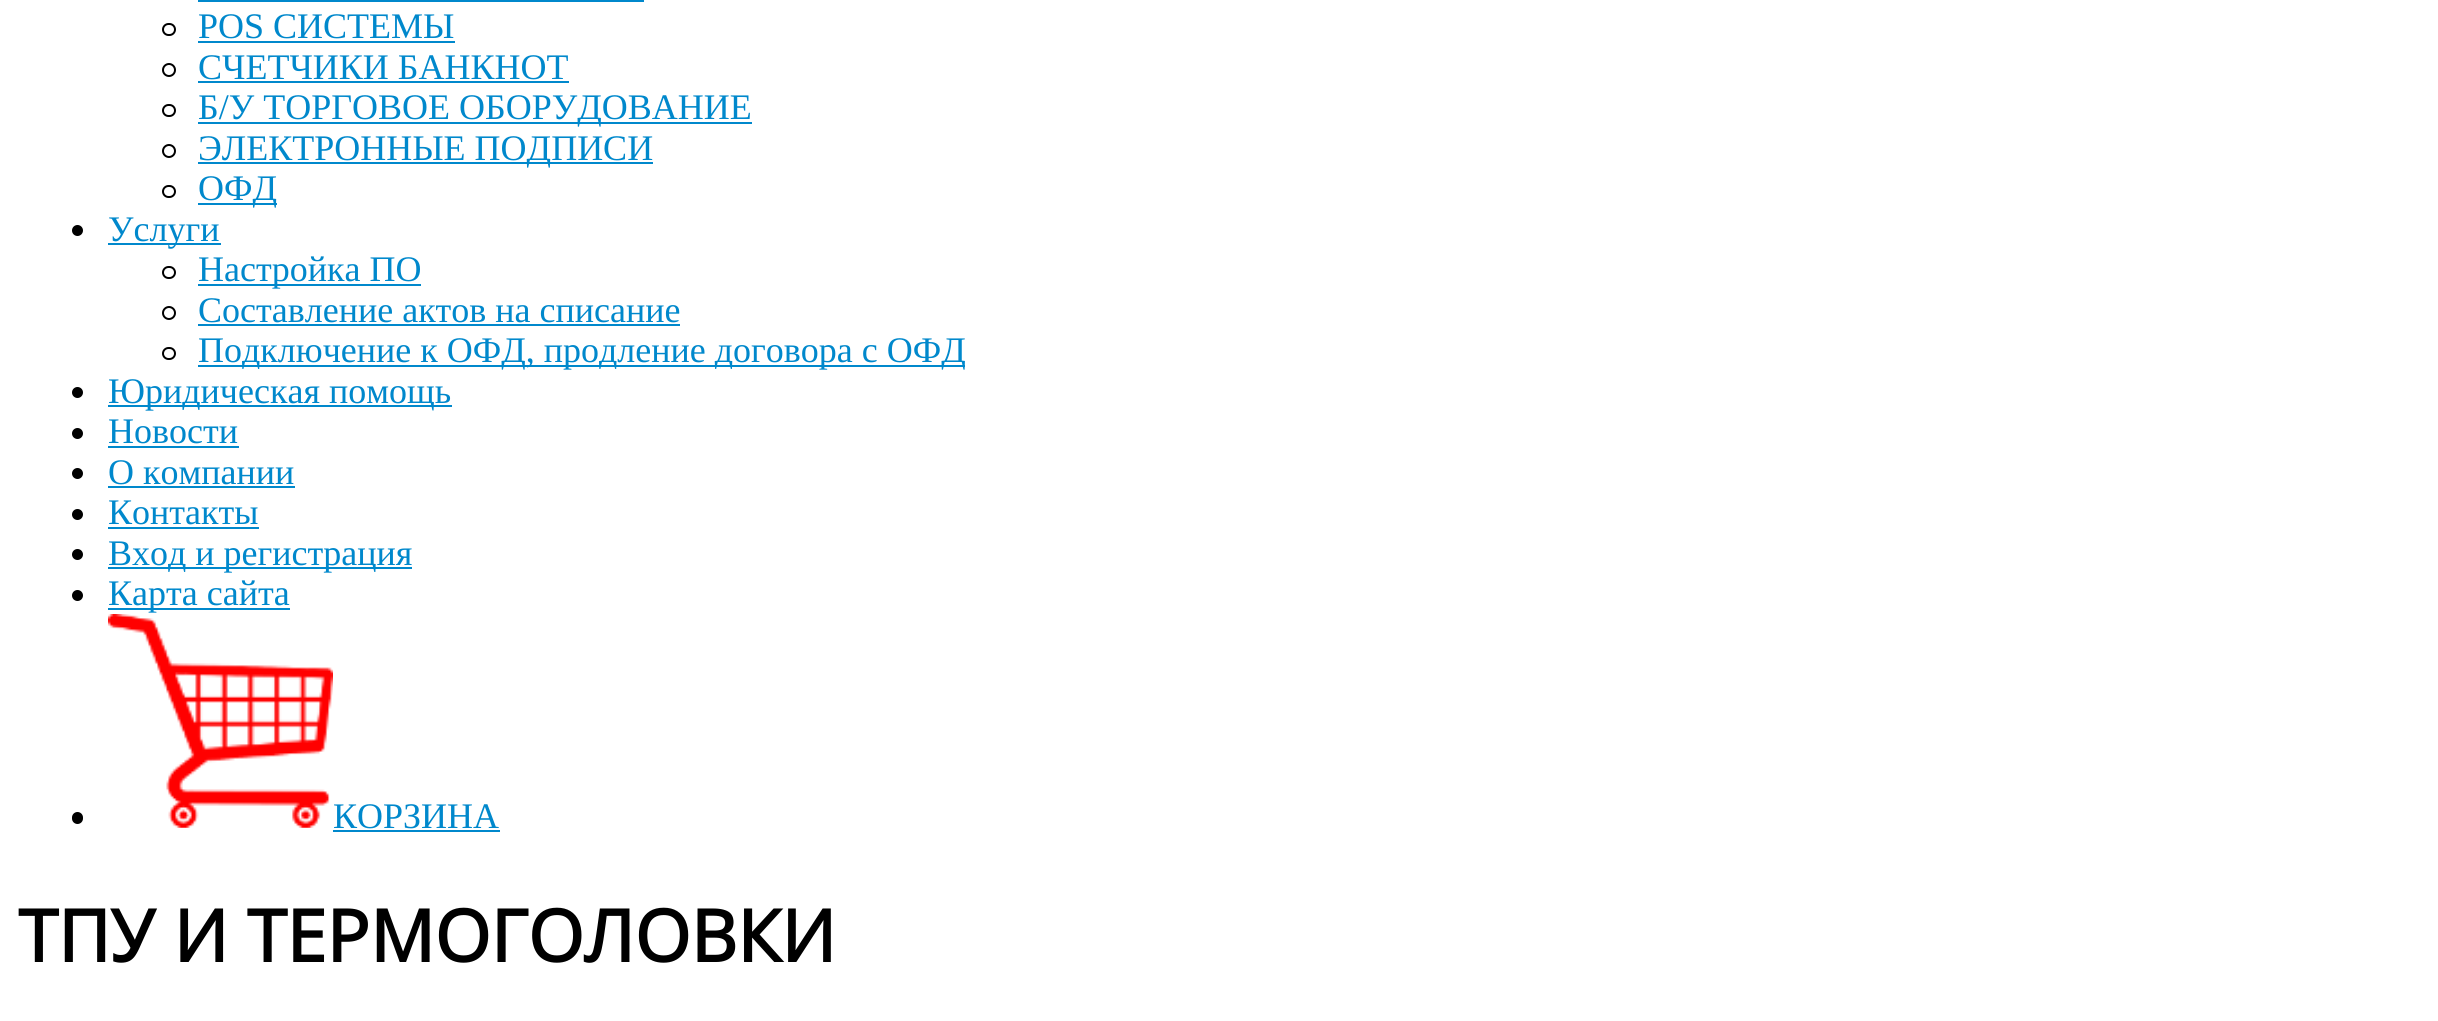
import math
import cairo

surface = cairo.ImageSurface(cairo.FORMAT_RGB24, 2438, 1021)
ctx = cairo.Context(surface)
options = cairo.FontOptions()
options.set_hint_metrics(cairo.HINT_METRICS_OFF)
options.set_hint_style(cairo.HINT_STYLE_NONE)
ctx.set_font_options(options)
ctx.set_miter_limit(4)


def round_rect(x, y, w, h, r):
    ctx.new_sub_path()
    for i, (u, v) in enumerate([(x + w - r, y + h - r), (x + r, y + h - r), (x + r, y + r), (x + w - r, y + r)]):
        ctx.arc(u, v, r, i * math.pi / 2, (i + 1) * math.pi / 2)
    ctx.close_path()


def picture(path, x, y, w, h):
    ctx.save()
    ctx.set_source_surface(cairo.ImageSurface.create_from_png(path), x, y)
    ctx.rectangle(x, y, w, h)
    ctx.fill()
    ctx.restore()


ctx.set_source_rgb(1, 1, 1)
ctx.paint()
ctx.set_source_rgb(0, 0.533, 0.8)
ctx.rectangle(198, 0, 446, 2)
ctx.fill()
round_rect(163, 24, 12, 11, 5.5)
ctx.set_source_rgb(0, 0, 0)
ctx.stroke()
ctx.select_font_face("Liberation Serif")
ctx.set_font_size(36)
ctx.set_source_rgb(0, 0.533, 0.8)
ctx.move_to(198, 38)
ctx.show_text("POS СИСТЕМЫ")
ctx.rectangle(198, 41, 257, 2)
ctx.fill()
ctx.arc(169, 70, 6, 0, 2 * math.pi)
ctx.set_source_rgb(0, 0, 0)
ctx.stroke()
ctx.set_source_rgb(0, 0.533, 0.8)
ctx.move_to(198, 79)
ctx.show_text("СЧЕТЧИКИ БАНКНОТ")
ctx.rectangle(198, 81, 371, 2)
ctx.fill()
round_rect(163, 105, 12, 11, 5.5)
ctx.set_source_rgb(0, 0, 0)
ctx.stroke()
ctx.set_source_rgb(0, 0.533, 0.8)
ctx.rectangle(198, 122, 554, 2)
ctx.fill()
ctx.move_to(198, 119)
ctx.show_text("Б/У ТОРГОВОЕ ОБОРУДОВАНИЕ")
ctx.new_path()
ctx.arc(169, 151, 6, 0, 2 * math.pi)
ctx.set_source_rgb(0, 0, 0)
ctx.stroke()
ctx.set_source_rgb(0, 0.533, 0.8)
ctx.rectangle(198, 162, 455, 2)
ctx.fill()
ctx.move_to(198, 160)
ctx.show_text("ЭЛЕКТРОННЫЕ ПОДПИСИ")
round_rect(163, 186, 12, 11, 5.5)
ctx.set_source_rgb(0, 0, 0)
ctx.stroke()
ctx.set_source_rgb(0, 0.533, 0.8)
ctx.rectangle(198, 203, 79, 2)
ctx.fill()
ctx.move_to(198, 200)
ctx.show_text("ОФД")
ctx.set_source_rgb(0, 0, 0)
ctx.new_path()
ctx.arc(77.5, 230.5, 5.5, 0, 2 * math.pi)
ctx.fill()
ctx.set_source_rgb(0, 0.533, 0.8)
ctx.rectangle(108, 243, 113, 2)
ctx.fill()
ctx.move_to(108, 241)
ctx.show_text("Услуги")
round_rect(163, 267, 12, 11, 5.5)
ctx.set_source_rgb(0, 0, 0)
ctx.stroke()
ctx.set_source_rgb(0, 0.533, 0.8)
ctx.rectangle(198, 284, 223, 2)
ctx.fill()
ctx.move_to(198, 281)
ctx.show_text("Настройка ПО")
ctx.new_path()
ctx.arc(169, 313, 6, 0, 2 * math.pi)
ctx.set_source_rgb(0, 0, 0)
ctx.stroke()
ctx.set_source_rgb(0, 0.533, 0.8)
ctx.move_to(198, 322)
ctx.show_text("Составление актов на списание")
ctx.rectangle(198, 324, 482, 2)
ctx.fill()
round_rect(163, 348, 12, 11, 5.5)
ctx.set_source_rgb(0, 0, 0)
ctx.stroke()
ctx.set_source_rgb(0, 0.533, 0.8)
ctx.rectangle(198, 365, 767, 2)
ctx.fill()
ctx.move_to(198, 362)
ctx.show_text("Подключение к ОФД, продление договора с ОФД")
ctx.set_source_rgb(0, 0, 0)
ctx.new_path()
ctx.arc(77.5, 392.5, 5.5, 0, 2 * math.pi)
ctx.fill()
ctx.set_source_rgb(0, 0.533, 0.8)
ctx.rectangle(108, 405, 344, 2)
ctx.fill()
ctx.move_to(108, 403)
ctx.show_text("Юридическая помощь")
ctx.set_source_rgb(0, 0, 0)
ctx.new_path()
ctx.arc(77.5, 433.5, 5.5, 0, 2 * math.pi)
ctx.fill()
ctx.set_source_rgb(0, 0.533, 0.8)
ctx.move_to(108, 443)
ctx.show_text("Новости")
ctx.rectangle(108, 446, 131, 2)
ctx.fill()
ctx.set_source_rgb(0, 0, 0)
ctx.arc(77.5, 473.5, 5.5, 0, 2 * math.pi)
ctx.fill()
ctx.set_source_rgb(0, 0.533, 0.8)
ctx.move_to(108, 484)
ctx.show_text("О компании")
ctx.rectangle(108, 486, 187, 2)
ctx.fill()
ctx.set_source_rgb(0, 0, 0)
ctx.arc(77.5, 514.5, 5.5, 0, 2 * math.pi)
ctx.fill()
ctx.set_source_rgb(0, 0.533, 0.8)
ctx.move_to(108, 524)
ctx.show_text("Контакты")
ctx.rectangle(108, 527, 151, 2)
ctx.fill()
ctx.set_source_rgb(0, 0, 0)
ctx.arc(77.5, 554.5, 5.5, 0, 2 * math.pi)
ctx.fill()
ctx.set_source_rgb(0, 0.533, 0.8)
ctx.rectangle(108, 567, 304, 2)
ctx.fill()
ctx.move_to(108, 565)
ctx.show_text("Вход и регистрация")
ctx.set_source_rgb(0, 0, 0)
ctx.new_path()
ctx.arc(77.5, 595.5, 5.5, 0, 2 * math.pi)
ctx.fill()
ctx.set_source_rgb(0, 0.533, 0.8)
ctx.rectangle(108, 608, 182, 2)
ctx.fill()
ctx.move_to(108, 605)
ctx.show_text("Карта сайта")
ctx.set_source_rgb(0, 0, 0)
round_rect(72, 812, 11, 12, 5.5)
ctx.fill()
picture("img1.png", 108, 614, 225, 214)
ctx.set_source_rgb(0, 0.533, 0.8)
ctx.move_to(333, 828)
ctx.show_text("КОРЗИНА")
ctx.rectangle(333, 830, 167, 2)
ctx.fill()
ctx.select_font_face("Open Sans", cairo.FONT_SLANT_NORMAL, cairo.FONT_WEIGHT_BOLD)
ctx.set_font_size(72)
ctx.set_source_rgb(0, 0, 0)
ctx.move_to(18, 962)
ctx.show_text("ТПУ И ТЕРМОГОЛОВКИ")
surface.write_to_png("page.png")
